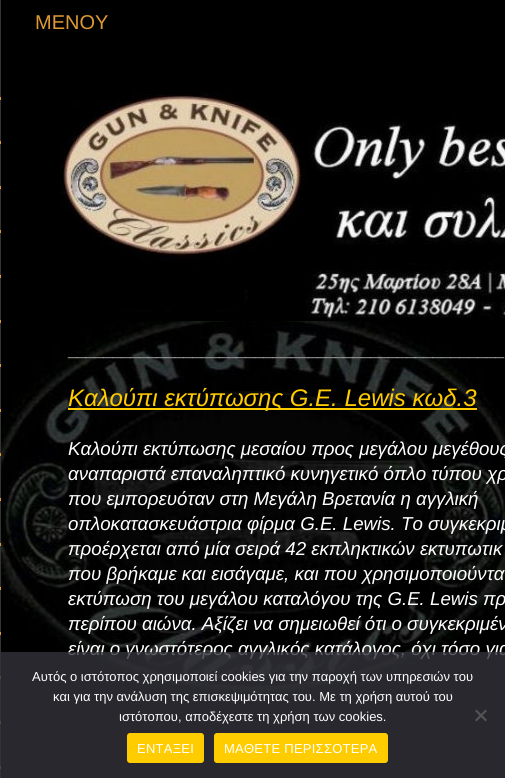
import math
import cairo

surface = cairo.ImageSurface(cairo.FORMAT_RGB24, 505, 778)
ctx = cairo.Context(surface)
options = cairo.FontOptions()
options.set_hint_metrics(cairo.HINT_METRICS_OFF)
options.set_hint_style(cairo.HINT_STYLE_NONE)
ctx.set_font_options(options)
ctx.set_miter_limit(4)


def spaced_text(x, y, s, letter, word):
    ctx.move_to(x, y)
    for ch in s:
        ctx.show_text(ch)
        ctx.rel_move_to(letter + word * (ch == ' '), 0)


def round_rect(x, y, w, h, r):
    ctx.new_sub_path()
    for i, (u, v) in enumerate([(x + w - r, y + h - r), (x + r, y + h - r), (x + r, y + r), (x + w - r, y + r)]):
        ctx.arc(u, v, r, i * math.pi / 2, (i + 1) * math.pi / 2)
    ctx.close_path()


def picture(path, x, y, w, h):
    ctx.save()
    ctx.set_source_surface(cairo.ImageSurface.create_from_png(path), x, y)
    ctx.rectangle(x, y, w, h)
    ctx.fill()
    ctx.restore()


ctx.set_source_rgb(0, 0, 0)
ctx.paint()
picture("img1.png", 1, 312, 504, 387)
ctx.set_source_rgb(0.2, 0.2, 0.2)
ctx.rectangle(0, 0, 1, 778)
ctx.fill()
ctx.set_source_rgb(0.867, 0.6, 0.2)
ctx.rectangle(0, 97, 1, 3)
ctx.fill()
ctx.rectangle(0, 141, 1, 3)
ctx.fill()
ctx.rectangle(0, 186, 1, 3)
ctx.fill()
ctx.rectangle(0, 230, 1, 3)
ctx.fill()
ctx.rectangle(0, 275, 1, 3)
ctx.fill()
ctx.rectangle(0, 320, 1, 3)
ctx.fill()
ctx.rectangle(0, 364, 1, 3)
ctx.fill()
ctx.rectangle(0, 409, 1, 3)
ctx.fill()
ctx.rectangle(0, 453, 1, 3)
ctx.fill()
ctx.rectangle(0, 498, 1, 3)
ctx.fill()
ctx.rectangle(0, 543, 1, 3)
ctx.fill()
ctx.rectangle(0, 587, 1, 3)
ctx.fill()
ctx.rectangle(0, 632, 1, 3)
ctx.fill()
ctx.rectangle(0, 676, 1, 3)
ctx.fill()
ctx.rectangle(0, 721, 1, 3)
ctx.fill()
ctx.rectangle(0, 766, 1, 3)
ctx.fill()
ctx.select_font_face("Liberation Sans")
ctx.set_font_size(20)
ctx.move_to(35, 29)
ctx.show_text("ΜΕΝΟΥ")
picture("img2.png", 60, 90, 445, 231)
ctx.set_font_size(16)
ctx.set_source_rgb(0.6, 0.6, 0.6)
ctx.move_to(68, 355)
ctx.show_text("_________________________________________________")
ctx.set_source_rgb(1, 0.8, 0)
ctx.rectangle(68, 408, 409, 2)
ctx.fill()
ctx.select_font_face("Liberation Sans", cairo.FONT_SLANT_ITALIC)
ctx.set_font_size(24)
ctx.move_to(68, 406)
ctx.show_text("Καλούπι εκτύπωσης G.E. Lewis κωδ.3")
ctx.set_font_size(18.7)
ctx.set_source_rgb(1, 1, 1)
ctx.move_to(68, 455)
ctx.show_text("Καλούπι εκτύπωσης μεσαίου προς μεγάλου μεγέθους")
ctx.move_to(68, 480)
ctx.show_text("αναπαριστά επαναληπτικό κυνηγετικό όπλο τύπου χρ")
ctx.move_to(68, 505)
ctx.show_text("που εμπορευόταν στη Μεγάλη Βρετανία η αγγλική")
ctx.move_to(68, 530)
ctx.show_text("οπλοκατασκευάστρια φίρμα G.E. Lewis. Το συγκεκριμ")
ctx.move_to(68, 555)
ctx.show_text("προέρχεται από μία σειρά 42 εκπληκτικών εκτυπωτικ")
ctx.move_to(68, 580)
ctx.show_text("που βρήκαμε και εισάγαμε, και που χρησιμοποιούντα")
ctx.move_to(68, 605)
ctx.show_text("εκτύπωση του μεγάλου καταλόγου της G.E. Lewis πρ")
ctx.move_to(68, 630)
ctx.show_text("περίπου αιώνα. Αξίζει να σημειωθεί ότι ο συγκεκριμέν")
ctx.move_to(68, 655)
ctx.show_text("είναι ο γνωστότερος αγγλικός κατάλογος, όχι τόσο για")
ctx.set_source_rgba(0.196, 0.196, 0.227, 0.8)
ctx.rectangle(0, 652, 505, 126)
ctx.fill()
ctx.select_font_face("Liberation Sans")
ctx.set_font_size(13)
ctx.set_source_rgb(1, 1, 1)
ctx.move_to(32, 681)
ctx.show_text("Αυτός ο ιστότοπος χρησιμοποιεί cookies για την παροχή των υπηρεσιών του")
ctx.move_to(53, 701)
ctx.show_text("και για την ανάλυση της επισκεψιμότητας του. Με τη χρήση αυτού του")
ctx.move_to(119, 721)
ctx.show_text("ιστότοπου, αποδέχεστε τη χρήση των cookies.")
ctx.set_source_rgb(0.329, 0.329, 0.341)
ctx.new_path()
ctx.move_to(485.5, 709.5)
ctx.line_to(487, 711)
ctx.line_to(476.5, 721.5)
ctx.line_to(475, 720)
ctx.close_path()
ctx.fill()
ctx.new_path()
ctx.move_to(475, 711)
ctx.line_to(476.5, 709.5)
ctx.line_to(487, 720)
ctx.line_to(485.5, 721.5)
ctx.close_path()
ctx.fill()
ctx.set_source_rgb(1, 0.8, 0)
round_rect(127, 733, 77, 30, 3)
ctx.fill()
ctx.set_source_rgb(1, 1, 1)
spaced_text(137, 753, "ΕΝΤΑΞΕΙ", 0.25, 0)
ctx.set_source_rgb(1, 0.8, 0)
round_rect(214, 733, 174, 30, 3)
ctx.fill()
ctx.set_source_rgb(1, 1, 1)
spaced_text(224, 753, "ΜΑΘΕΤΕ ΠΕΡΙΣΣΟΤΕΡΑ", 0.25, 0)
surface.write_to_png("page.png")
